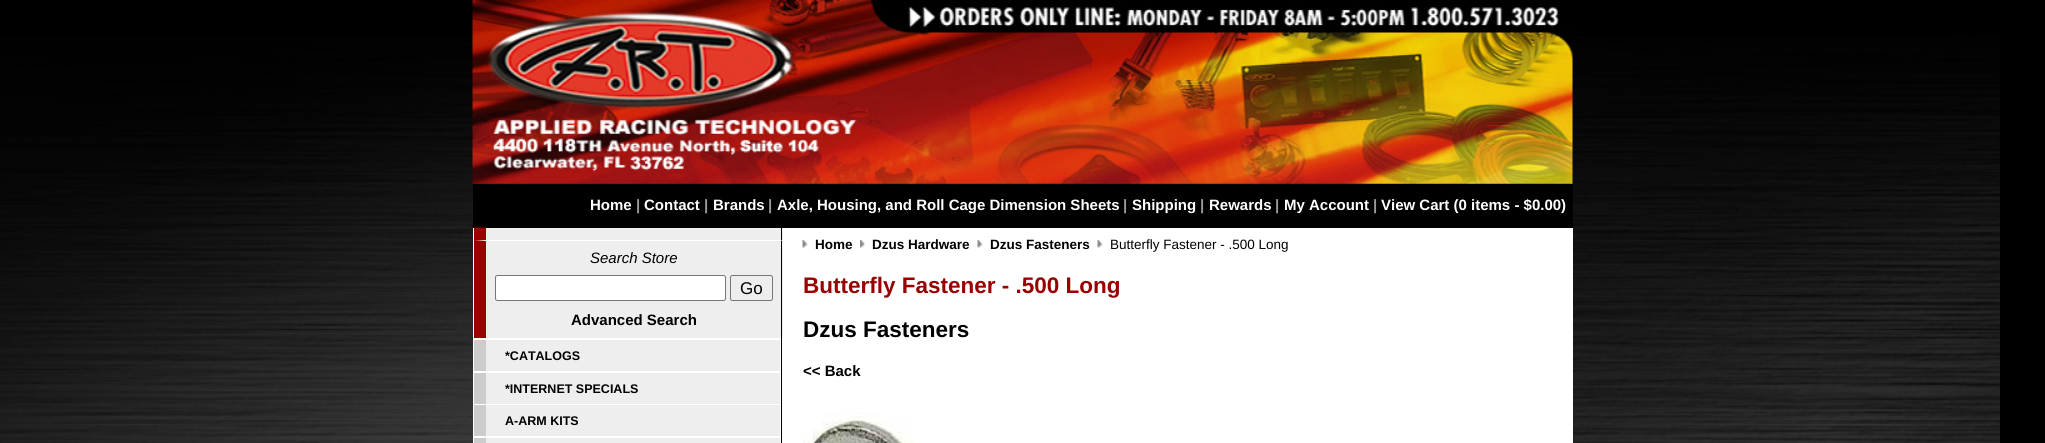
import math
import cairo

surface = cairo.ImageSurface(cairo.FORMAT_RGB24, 2045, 443)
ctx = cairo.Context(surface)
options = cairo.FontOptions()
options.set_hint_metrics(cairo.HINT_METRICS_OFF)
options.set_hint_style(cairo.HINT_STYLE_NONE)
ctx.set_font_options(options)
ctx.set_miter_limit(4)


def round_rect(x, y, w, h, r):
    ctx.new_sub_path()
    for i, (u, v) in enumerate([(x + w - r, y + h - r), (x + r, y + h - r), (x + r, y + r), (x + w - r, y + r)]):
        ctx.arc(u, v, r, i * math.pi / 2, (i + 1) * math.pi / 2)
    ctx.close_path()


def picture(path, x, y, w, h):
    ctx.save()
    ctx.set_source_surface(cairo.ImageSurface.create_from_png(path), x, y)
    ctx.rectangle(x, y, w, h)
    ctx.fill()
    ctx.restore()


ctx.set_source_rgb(0, 0, 0)
ctx.paint()
picture("img1.png", 0, 36, 2000, 407)
picture("img2.png", 472, 0, 1101, 184)
ctx.set_source_rgb(0, 0, 0)
ctx.rectangle(473, 184, 1100, 44)
ctx.fill()
ctx.select_font_face("Liberation Sans", cairo.FONT_SLANT_NORMAL, cairo.FONT_WEIGHT_BOLD)
ctx.set_font_size(15)
ctx.set_source_rgb(1, 1, 1)
ctx.move_to(590, 210)
ctx.show_text("Home")
ctx.set_source_rgb(0.6, 0.6, 0.6)
ctx.move_to(636, 210)
ctx.show_text("|")
ctx.set_source_rgb(1, 1, 1)
ctx.move_to(644, 210)
ctx.show_text("Contact")
ctx.set_source_rgb(0.6, 0.6, 0.6)
ctx.move_to(704, 210)
ctx.show_text("|")
ctx.set_source_rgb(1, 1, 1)
ctx.move_to(713, 210)
ctx.show_text("Brands")
ctx.set_source_rgb(0.6, 0.6, 0.6)
ctx.move_to(768, 210)
ctx.show_text("|")
ctx.set_source_rgb(1, 1, 1)
ctx.move_to(777, 210)
ctx.show_text("Axle, Housing, and Roll Cage Dimension Sheets")
ctx.set_source_rgb(0.6, 0.6, 0.6)
ctx.move_to(1123, 210)
ctx.show_text("|")
ctx.set_source_rgb(1, 1, 1)
ctx.move_to(1132, 210)
ctx.show_text("Shipping")
ctx.set_source_rgb(0.6, 0.6, 0.6)
ctx.move_to(1200, 210)
ctx.show_text("|")
ctx.set_source_rgb(1, 1, 1)
ctx.move_to(1209, 210)
ctx.show_text("Rewards")
ctx.set_source_rgb(0.6, 0.6, 0.6)
ctx.move_to(1275, 210)
ctx.show_text("|")
ctx.set_source_rgb(1, 1, 1)
ctx.move_to(1284, 210)
ctx.show_text("My Account")
ctx.set_source_rgb(0.6, 0.6, 0.6)
ctx.move_to(1373, 210)
ctx.show_text("|")
ctx.set_source_rgb(1, 1, 1)
ctx.move_to(1381, 210)
ctx.show_text("View Cart (0 items - $0.00)")
ctx.rectangle(473, 228, 1100, 215)
ctx.fill()
ctx.set_source_rgb(0.933, 0.933, 0.933)
ctx.rectangle(474, 228, 309, 13)
ctx.fill()
ctx.set_source_rgb(0, 0, 0)
ctx.rectangle(781, 228, 1, 13)
ctx.fill()
ctx.set_source_rgb(1, 1, 1)
ctx.new_path()
ctx.move_to(782, 241)
ctx.line_to(474, 241)
ctx.line_to(486, 240)
ctx.line_to(781, 240)
ctx.close_path()
ctx.fill()
ctx.set_source_rgb(0.6, 0, 0)
ctx.new_path()
ctx.move_to(474, 241)
ctx.line_to(474, 227.5)
ctx.line_to(486, 227.5)
ctx.line_to(486, 240)
ctx.close_path()
ctx.fill()
ctx.set_source_rgb(0.933, 0.933, 0.933)
ctx.rectangle(486, 241, 297, 97)
ctx.fill()
ctx.set_source_rgb(0, 0, 0)
ctx.rectangle(781, 241, 1, 202)
ctx.fill()
ctx.set_source_rgb(0.6, 0, 0)
ctx.rectangle(474, 241, 12, 97)
ctx.fill()
ctx.select_font_face("Liberation Sans", cairo.FONT_SLANT_ITALIC)
ctx.set_source_rgb(0, 0, 0)
ctx.move_to(590, 263)
ctx.show_text("Search Store")
ctx.set_source_rgb(1, 1, 1)
round_rect(495.5, 275.5, 230, 25, 2)
ctx.fill_preserve()
ctx.set_source_rgb(0.463, 0.463, 0.463)
ctx.set_line_width(1)
ctx.stroke()
round_rect(730.5, 275.5, 42, 25, 2)
ctx.stroke()
ctx.select_font_face("Liberation Sans")
ctx.set_font_size(17)
ctx.set_source_rgb(0, 0, 0)
ctx.move_to(740, 294)
ctx.show_text("Go")
ctx.select_font_face("Liberation Sans", cairo.FONT_SLANT_NORMAL, cairo.FONT_WEIGHT_BOLD)
ctx.set_font_size(15)
ctx.move_to(571, 325)
ctx.show_text("Advanced Search")
ctx.set_source_rgb(0.933, 0.933, 0.933)
ctx.rectangle(486, 340, 294, 31)
ctx.fill()
ctx.set_source_rgb(0.8, 0.8, 0.8)
ctx.rectangle(474, 340, 12, 31)
ctx.fill()
ctx.set_font_size(12.5)
ctx.set_source_rgb(0, 0, 0)
ctx.move_to(505, 360)
ctx.show_text("*CATALOGS")
ctx.set_source_rgb(0.933, 0.933, 0.933)
ctx.rectangle(486, 373, 294, 31)
ctx.fill()
ctx.set_source_rgb(0.8, 0.8, 0.8)
ctx.rectangle(474, 373, 12, 31)
ctx.fill()
ctx.set_source_rgb(0, 0, 0)
ctx.move_to(505, 393)
ctx.show_text("*INTERNET SPECIALS")
ctx.set_source_rgb(0.933, 0.933, 0.933)
ctx.rectangle(486, 405, 294, 31)
ctx.fill()
ctx.set_source_rgb(0.8, 0.8, 0.8)
ctx.rectangle(474, 405, 12, 31)
ctx.fill()
ctx.set_source_rgb(0, 0, 0)
ctx.move_to(505, 425)
ctx.show_text("A-ARM KITS")
ctx.set_source_rgb(0.933, 0.933, 0.933)
ctx.rectangle(486, 438, 294, 5)
ctx.fill()
ctx.set_source_rgb(0.8, 0.8, 0.8)
ctx.rectangle(474, 438, 12, 5)
ctx.fill()
picture("img3.png", 802, 240, 6, 8)
ctx.set_font_size(13.5)
ctx.set_source_rgb(0, 0, 0)
ctx.move_to(815, 249)
ctx.show_text("Home")
picture("img4.png", 860, 240, 5, 8)
ctx.move_to(872, 249)
ctx.show_text("Dzus Hardware")
picture("img3.png", 977, 240, 6, 8)
ctx.move_to(990, 249)
ctx.show_text("Dzus Fasteners")
picture("img3.png", 1097, 240, 6, 8)
ctx.select_font_face("Liberation Sans")
ctx.move_to(1110, 249)
ctx.show_text("Butterfly Fastener - .500 Long")
ctx.select_font_face("Liberation Sans", cairo.FONT_SLANT_NORMAL, cairo.FONT_WEIGHT_BOLD)
ctx.set_font_size(22.5)
ctx.set_source_rgb(0.6, 0, 0)
ctx.move_to(803, 293)
ctx.show_text("Butterfly Fastener - .500 Long")
ctx.set_source_rgb(0, 0, 0)
ctx.move_to(803, 337)
ctx.show_text("Dzus Fasteners")
ctx.set_font_size(15)
ctx.move_to(803, 376)
ctx.show_text("<< Back")
picture("img5.png", 802, 412, 113, 31)
surface.write_to_png("page.png")
